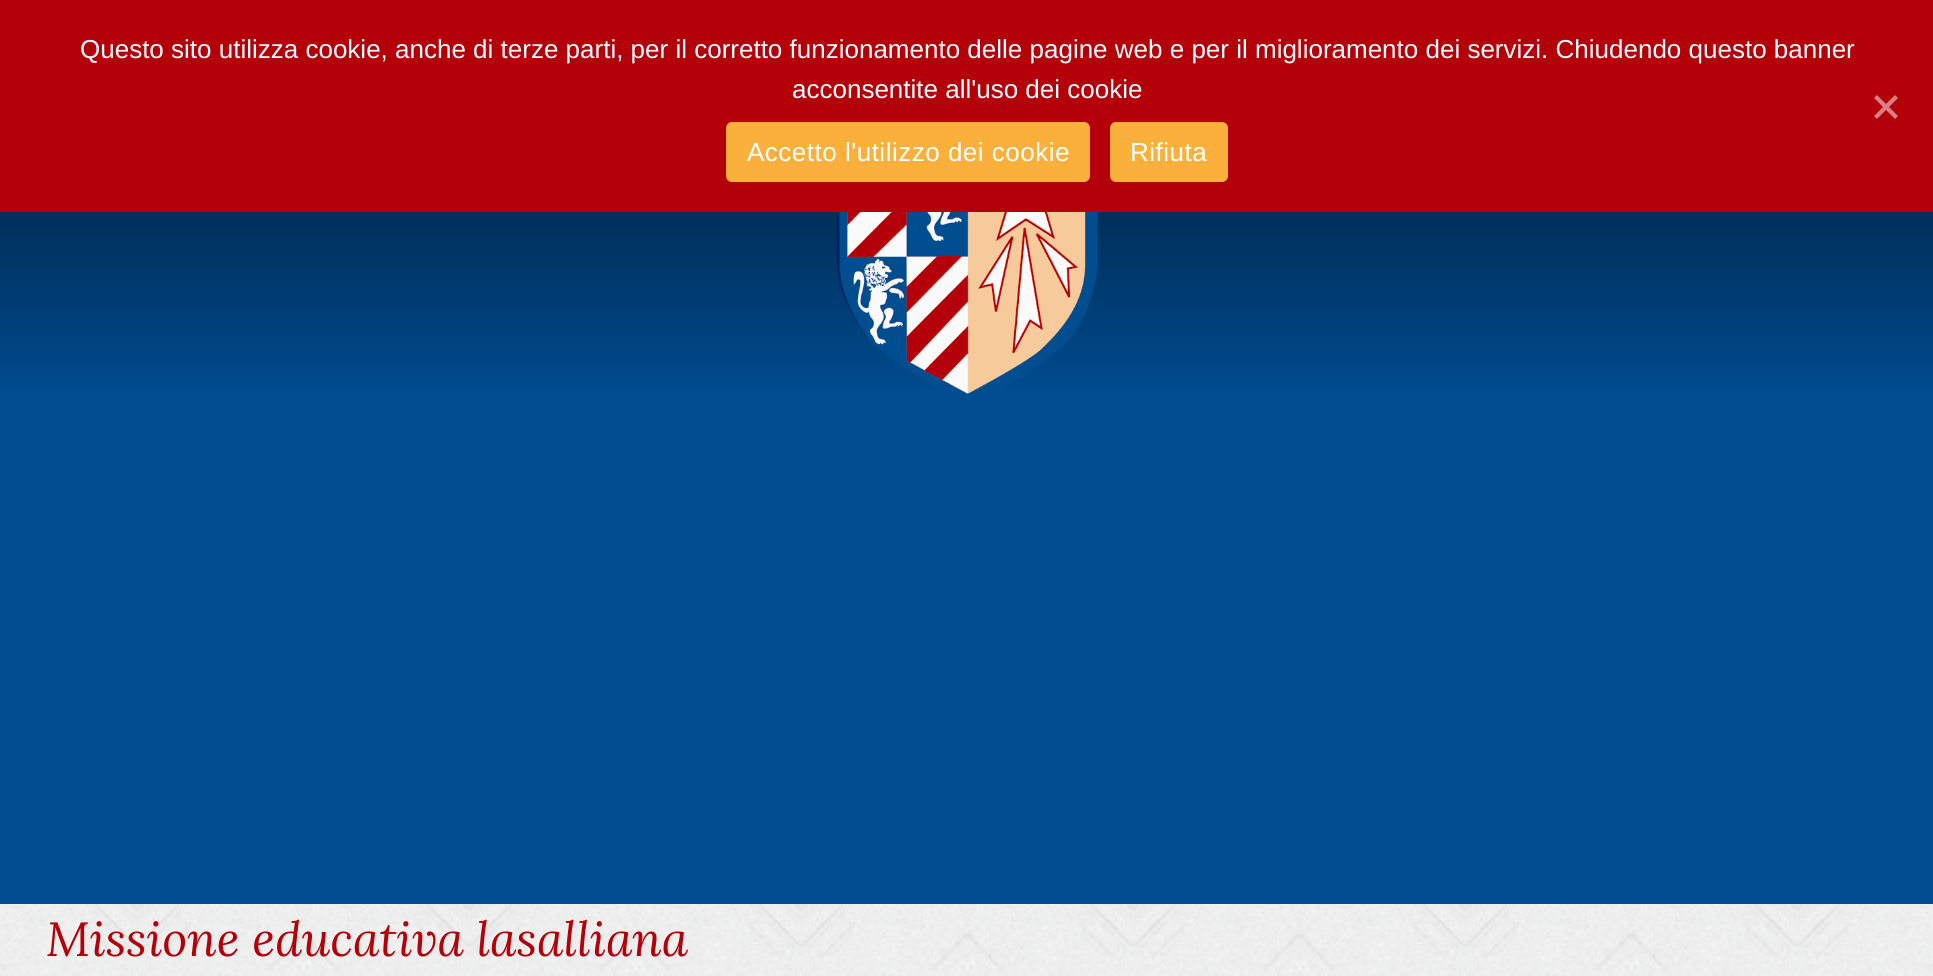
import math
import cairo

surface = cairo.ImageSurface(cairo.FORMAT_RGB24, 1933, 976)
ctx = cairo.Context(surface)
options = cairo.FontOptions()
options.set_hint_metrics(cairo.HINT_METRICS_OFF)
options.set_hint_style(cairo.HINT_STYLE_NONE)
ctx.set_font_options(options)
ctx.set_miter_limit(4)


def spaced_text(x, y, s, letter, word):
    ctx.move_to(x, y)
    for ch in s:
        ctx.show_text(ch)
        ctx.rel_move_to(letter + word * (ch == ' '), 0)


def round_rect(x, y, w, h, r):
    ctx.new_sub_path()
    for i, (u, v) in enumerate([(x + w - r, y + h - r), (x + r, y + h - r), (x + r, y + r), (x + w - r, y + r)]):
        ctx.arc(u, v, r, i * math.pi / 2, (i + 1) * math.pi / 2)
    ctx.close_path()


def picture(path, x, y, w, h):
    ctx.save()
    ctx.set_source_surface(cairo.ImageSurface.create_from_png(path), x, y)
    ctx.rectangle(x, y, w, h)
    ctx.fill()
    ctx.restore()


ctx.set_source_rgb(0, 0.302, 0.561)
ctx.paint()
ctx.set_source_rgb(0.702, 0, 0.039)
ctx.rectangle(0, 0, 1933, 212)
ctx.fill()
ctx.select_font_face("Liberation Sans")
ctx.set_font_size(26)
ctx.set_source_rgb(1, 1, 1)
ctx.move_to(80, 58)
ctx.show_text("Questo sito utilizza cookie, anche di terze parti, per il corretto funzionamento delle pagine web e per il miglioramento dei servizi. Chiudendo questo banner")
ctx.move_to(792, 98)
ctx.show_text("acconsentite all'uso dei cookie")
ctx.set_source_rgb(0.851, 0.502, 0.522)
ctx.new_path()
ctx.move_to(1895, 95)
ctx.line_to(1898, 98)
ctx.line_to(1877, 119)
ctx.line_to(1874, 116)
ctx.close_path()
ctx.fill()
ctx.new_path()
ctx.move_to(1874, 98)
ctx.line_to(1877, 95)
ctx.line_to(1898, 116)
ctx.line_to(1895, 119)
ctx.close_path()
ctx.fill()
ctx.set_source_rgb(0.984, 0.69, 0.231)
round_rect(726, 122, 364, 60, 6)
ctx.fill()
ctx.set_source_rgb(1, 1, 1)
spaced_text(747, 161, "Accetto l'utilizzo dei cookie", 0.5, 0)
ctx.set_source_rgb(0.984, 0.69, 0.231)
round_rect(1110, 122, 118, 60, 6)
ctx.fill()
ctx.set_source_rgb(1, 1, 1)
spaced_text(1130, 161, "Rifiuta", 0.5, 0)
gradient = cairo.LinearGradient(967, 400, 967, 0)
gradient.add_color_stop_rgba(0, 0, 0.298, 0.565, 1)
gradient.add_color_stop_rgba(1, 0, 0.059, 0.114, 1)
ctx.set_source(gradient)
ctx.rectangle(0, 212, 1933, 178)
ctx.fill()
picture("img1.png", 836, 212, 262, 183)
picture("img2.png", 0, 904, 1933, 72)
ctx.select_font_face("Lora", cairo.FONT_SLANT_ITALIC)
ctx.set_font_size(48)
ctx.set_source_rgb(0.702, 0, 0.039)
ctx.move_to(46, 956)
ctx.show_text("Missione educativa lasalliana")
surface.write_to_png("page.png")
